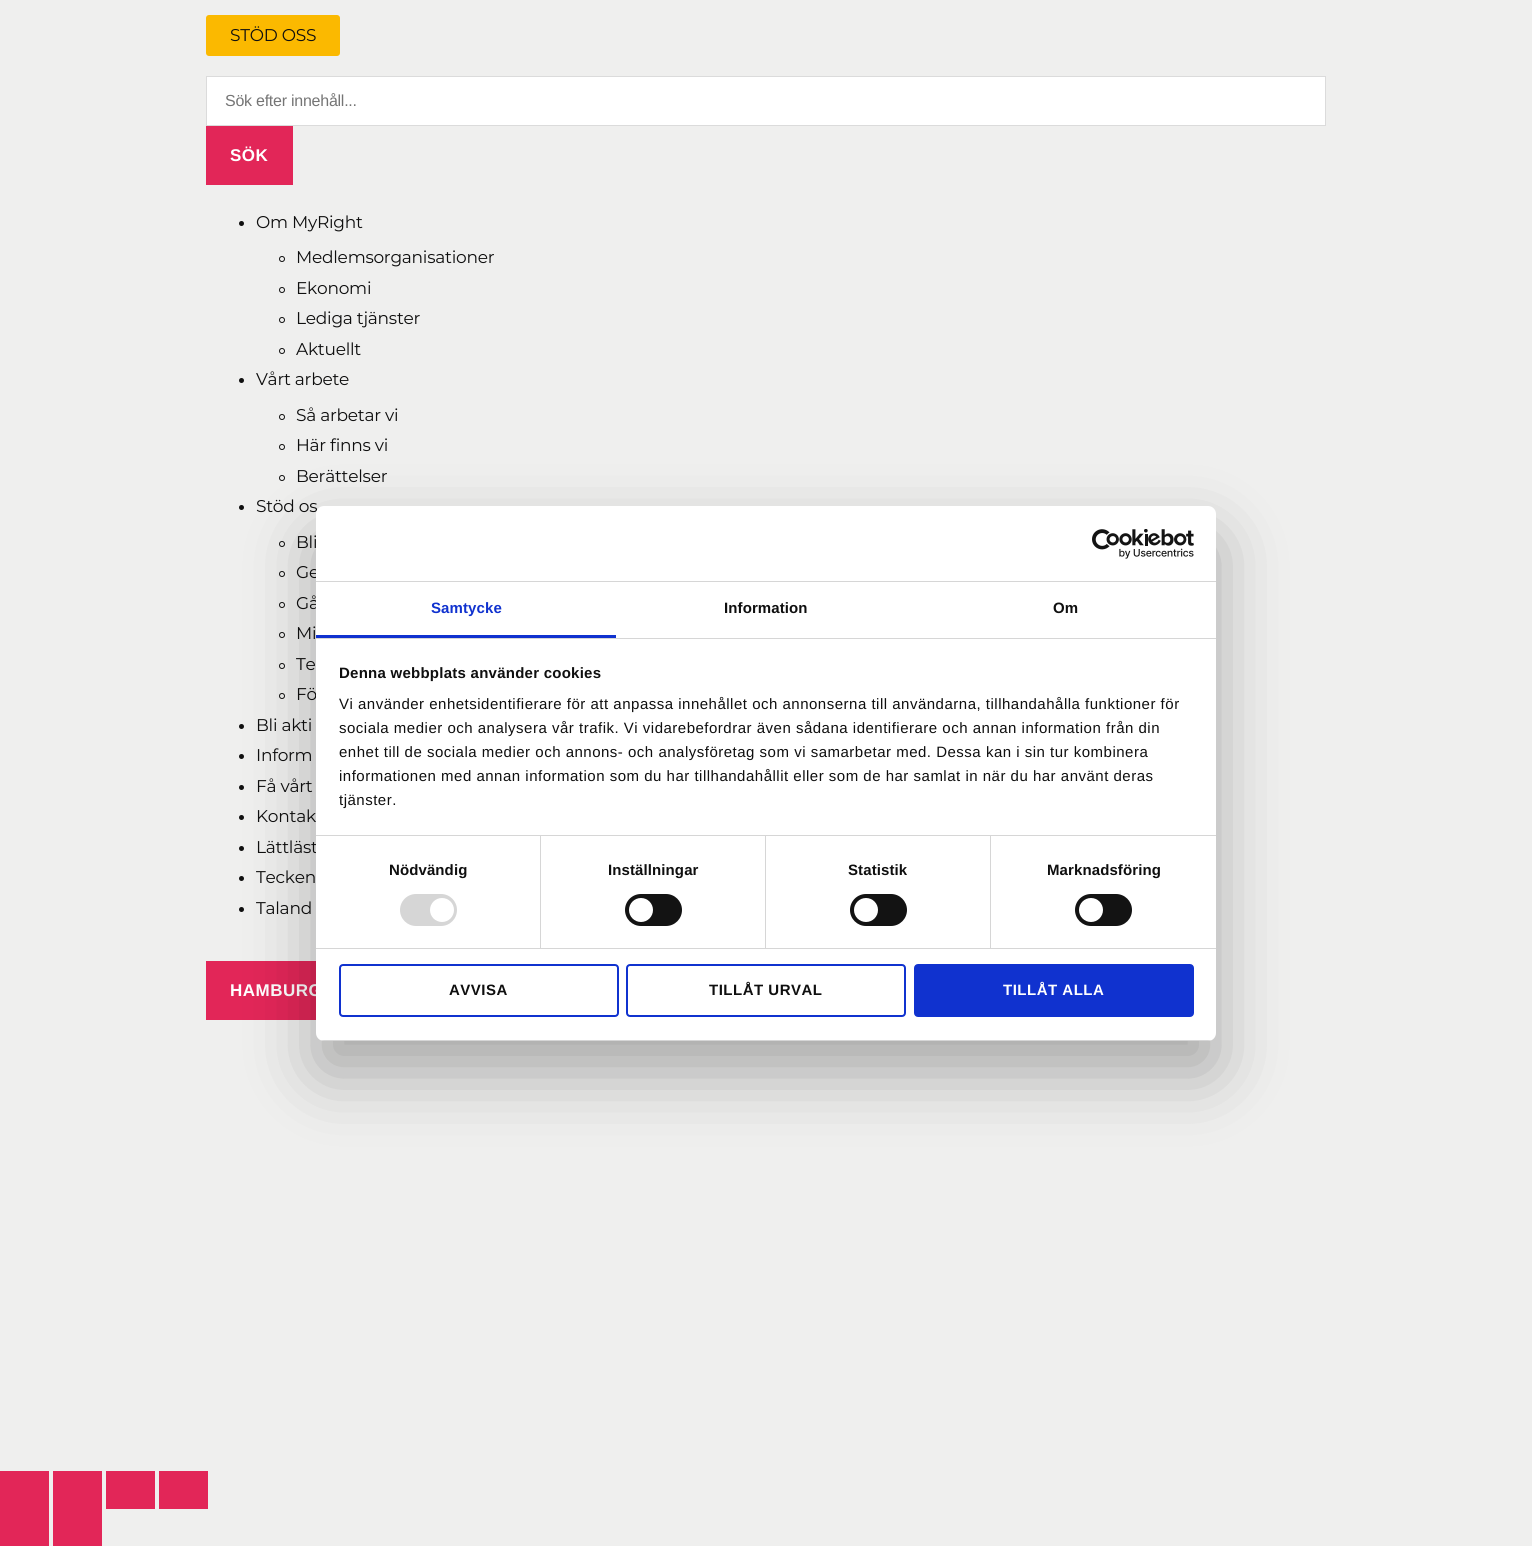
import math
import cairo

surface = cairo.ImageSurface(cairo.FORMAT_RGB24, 1532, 1546)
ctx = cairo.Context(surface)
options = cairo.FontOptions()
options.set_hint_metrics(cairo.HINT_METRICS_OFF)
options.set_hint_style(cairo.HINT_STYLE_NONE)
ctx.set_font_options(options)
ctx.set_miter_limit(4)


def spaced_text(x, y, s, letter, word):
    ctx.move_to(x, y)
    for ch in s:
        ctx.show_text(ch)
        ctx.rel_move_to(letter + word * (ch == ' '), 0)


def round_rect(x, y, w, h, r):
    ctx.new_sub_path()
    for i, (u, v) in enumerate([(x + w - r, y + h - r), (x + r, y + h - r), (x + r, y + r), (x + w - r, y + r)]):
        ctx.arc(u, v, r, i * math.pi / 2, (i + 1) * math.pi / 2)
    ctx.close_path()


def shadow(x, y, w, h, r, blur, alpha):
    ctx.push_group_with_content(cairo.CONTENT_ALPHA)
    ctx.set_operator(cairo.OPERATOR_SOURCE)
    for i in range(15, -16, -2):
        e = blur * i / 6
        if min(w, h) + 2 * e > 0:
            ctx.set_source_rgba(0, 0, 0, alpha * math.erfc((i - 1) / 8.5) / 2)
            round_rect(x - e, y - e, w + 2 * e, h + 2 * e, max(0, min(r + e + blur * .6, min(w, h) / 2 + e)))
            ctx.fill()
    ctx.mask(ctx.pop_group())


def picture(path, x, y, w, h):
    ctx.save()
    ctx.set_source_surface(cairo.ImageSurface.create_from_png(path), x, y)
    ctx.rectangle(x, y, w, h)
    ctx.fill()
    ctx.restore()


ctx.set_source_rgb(0.937, 0.937, 0.933)
ctx.paint()
ctx.set_source_rgb(0.984, 0.725, 0)
round_rect(206, 15, 134, 41, 3)
ctx.fill()
ctx.select_font_face("Montserrat")
ctx.set_font_size(17)
ctx.set_source_rgb(0.059, 0.059, 0.059)
spaced_text(230, 41, "STÖD OSS", -0.25, 0)
ctx.set_source_rgb(1, 1, 1)
ctx.rectangle(206.5, 76.5, 1119, 49)
ctx.fill_preserve()
ctx.set_source_rgb(0.859, 0.859, 0.859)
ctx.set_line_width(1)
ctx.stroke()
ctx.select_font_face("Liberation Sans")
ctx.set_font_size(16)
ctx.set_source_rgb(0.459, 0.459, 0.459)
spaced_text(225, 106, "Sök efter innehåll...", -0.25, 0)
ctx.set_source_rgb(0.886, 0.149, 0.345)
ctx.rectangle(206, 126, 87, 59)
ctx.fill()
ctx.select_font_face("Liberation Sans", cairo.FONT_SLANT_NORMAL, cairo.FONT_WEIGHT_BOLD)
ctx.set_font_size(17)
ctx.set_source_rgb(1, 1, 1)
spaced_text(230, 161, "SÖK", 0.5, 0)
ctx.set_source_rgb(0.059, 0.059, 0.059)
ctx.new_path()
ctx.arc(241.5, 223.5, 2.5, 0, 2 * math.pi)
ctx.fill()
ctx.select_font_face("Montserrat")
spaced_text(256, 228, "Om MyRight", -0.25, 0)
ctx.new_path()
ctx.arc(282, 259, 2.5, 0, 2 * math.pi)
ctx.stroke()
spaced_text(296, 263, "Medlemsorganisationer", -0.25, 0)
ctx.new_path()
ctx.arc(282, 290, 2.5, 0, 2 * math.pi)
ctx.stroke()
spaced_text(296, 294, "Ekonomi", -0.25, 0)
ctx.new_path()
ctx.arc(282, 320, 2.5, 0, 2 * math.pi)
ctx.stroke()
spaced_text(296, 324, "Lediga tjänster", -0.25, 0)
ctx.new_path()
ctx.arc(282, 351, 2.5, 0, 2 * math.pi)
ctx.stroke()
spaced_text(296, 355, "Aktuellt", -0.25, 0)
ctx.new_path()
ctx.arc(241.5, 380.5, 2.5, 0, 2 * math.pi)
ctx.fill()
spaced_text(256, 385, "Vårt arbete", -0.25, 0)
ctx.new_path()
ctx.arc(282, 417, 2.5, 0, 2 * math.pi)
ctx.stroke()
spaced_text(296, 421, "Så arbetar vi", -0.25, 0)
ctx.new_path()
ctx.arc(282, 447, 2.5, 0, 2 * math.pi)
ctx.stroke()
spaced_text(296, 451, "Här finns vi", -0.25, 0)
ctx.new_path()
ctx.arc(282, 478, 2.5, 0, 2 * math.pi)
ctx.stroke()
spaced_text(296, 482, "Berättelser", -0.25, 0)
ctx.new_path()
ctx.arc(241.5, 507.5, 2.5, 0, 2 * math.pi)
ctx.fill()
spaced_text(256, 512, "Stöd os", -0.25, 0)
ctx.new_path()
ctx.arc(282, 544, 2.5, 0, 2 * math.pi)
ctx.stroke()
spaced_text(296, 548, "Bli", -0.25, 0)
ctx.new_path()
ctx.arc(282, 574, 2.5, 0, 2 * math.pi)
ctx.stroke()
spaced_text(296, 578, "Ge", -0.25, 0)
ctx.new_path()
ctx.arc(282, 605, 2.5, 0, 2 * math.pi)
ctx.stroke()
spaced_text(296, 609, "Gå", -0.25, 0)
ctx.new_path()
ctx.arc(282, 635, 2.5, 0, 2 * math.pi)
ctx.stroke()
spaced_text(296, 639, "Mi", -0.25, 0)
ctx.new_path()
ctx.arc(282, 666, 2.5, 0, 2 * math.pi)
ctx.stroke()
spaced_text(296, 670, "Te", -0.25, 0)
ctx.new_path()
ctx.arc(282, 696, 2.5, 0, 2 * math.pi)
ctx.stroke()
spaced_text(296, 700, "Fö", -0.25, 0)
ctx.new_path()
ctx.arc(241.5, 726.5, 2.5, 0, 2 * math.pi)
ctx.fill()
spaced_text(256, 731, "Bli akti", -0.25, 0)
ctx.new_path()
ctx.arc(241.5, 756.5, 2.5, 0, 2 * math.pi)
ctx.fill()
spaced_text(256, 761, "Inform", -0.25, 0)
ctx.new_path()
ctx.arc(241.5, 787.5, 2.5, 0, 2 * math.pi)
ctx.fill()
spaced_text(256, 792, "Få vårt", -0.25, 0)
ctx.new_path()
ctx.arc(241.5, 817.5, 2.5, 0, 2 * math.pi)
ctx.fill()
spaced_text(256, 822, "Kontak", -0.25, 0)
ctx.new_path()
ctx.arc(241.5, 848.5, 2.5, 0, 2 * math.pi)
ctx.fill()
spaced_text(256, 853, "Lättläst", -0.25, 0)
ctx.new_path()
ctx.arc(241.5, 878.5, 2.5, 0, 2 * math.pi)
ctx.fill()
spaced_text(256, 883, "Tecken", -0.25, 0)
ctx.new_path()
ctx.arc(241.5, 909.5, 2.5, 0, 2 * math.pi)
ctx.fill()
spaced_text(256, 914, "Taland", -0.25, 0)
ctx.set_source_rgb(0.886, 0.149, 0.345)
ctx.rectangle(206, 961, 110, 59)
ctx.fill()
ctx.select_font_face("Liberation Sans", cairo.FONT_SLANT_NORMAL, cairo.FONT_WEIGHT_BOLD)
ctx.set_source_rgb(1, 1, 1)
spaced_text(230, 996, "HAMBURG", 0.5, 0)
ctx.set_source_rgb(0, 0, 0)
shadow(316, 538, 900, 535, 8, 34, 0.3)
ctx.set_source_rgb(1, 1, 1)
round_rect(316, 506, 900, 535, 8)
ctx.fill()
ctx.set_source_rgb(0.839, 0.839, 0.839)
ctx.rectangle(316, 581, 900, 1)
ctx.fill()
picture("img1.png", 1092, 529, 102, 30)
ctx.rectangle(316, 638, 900, 1)
ctx.fill()
ctx.set_source_rgb(0.063, 0.196, 0.812)
ctx.rectangle(316, 635, 300, 3)
ctx.fill()
ctx.set_font_size(15)
spaced_text(431, 613, "Samtycke", 0.1, 0)
ctx.set_source_rgb(0.059, 0.059, 0.059)
spaced_text(724, 613, "Information", 0.1, 0)
spaced_text(1053, 613, "Om", 0.1, 0)
ctx.set_source_rgb(0.839, 0.839, 0.839)
ctx.rectangle(316, 835, 900, 1)
ctx.fill()
ctx.set_source_rgb(0.059, 0.059, 0.059)
spaced_text(339, 678, "Denna webbplats använder cookies", 0.25, 0)
ctx.select_font_face("Liberation Sans")
spaced_text(339, 709, "Vi använder enhetsidentifierare för att anpassa innehållet och annonserna till användarna, tillhandahålla funktioner för", 0.5, 0)
spaced_text(339, 733, "sociala medier och analysera vår trafik. Vi vidarebefordrar även sådana identifierare och annan information från din", 0.5, 0)
spaced_text(339, 757, "enhet till de sociala medier och annons- och analysföretag som vi samarbetar med. Dessa kan i sin tur kombinera", 0.5, 0)
spaced_text(339, 781, "informationen med annan information som du har tillhandahållit eller som de har samlat in när du har använt deras", 0.5, 0)
spaced_text(339, 805, "tjänster.", 0.5, 0)
ctx.set_source_rgb(0.839, 0.839, 0.839)
ctx.rectangle(316, 948, 900, 1)
ctx.fill()
ctx.rectangle(540, 836, 1, 112)
ctx.fill()
ctx.select_font_face("Liberation Sans", cairo.FONT_SLANT_NORMAL, cairo.FONT_WEIGHT_BOLD)
ctx.set_source_rgb(0.059, 0.059, 0.059)
spaced_text(389, 875, "Nödvändig", 0.1, 0)
ctx.set_source_rgb(0.839, 0.839, 0.839)
round_rect(400, 894, 57, 32, 16)
ctx.fill()
ctx.set_source_rgb(1, 1, 1)
ctx.arc(442, 910, 12, 0, 2 * math.pi)
ctx.fill()
ctx.set_source_rgb(0.839, 0.839, 0.839)
ctx.rectangle(765, 836, 1, 112)
ctx.fill()
ctx.set_source_rgb(0.059, 0.059, 0.059)
spaced_text(608, 875, "Inställningar", 0.1, 0)
ctx.set_source_rgb(0.078, 0.078, 0.078)
round_rect(625, 894, 57, 32, 16)
ctx.fill()
ctx.set_source_rgb(1, 1, 1)
ctx.arc(641, 910, 12, 0, 2 * math.pi)
ctx.fill()
ctx.set_source_rgb(0.839, 0.839, 0.839)
ctx.rectangle(990, 836, 1, 112)
ctx.fill()
ctx.set_source_rgb(0.059, 0.059, 0.059)
spaced_text(848, 875, "Statistik", 0.1, 0)
ctx.set_source_rgb(0.078, 0.078, 0.078)
round_rect(850, 894, 57, 32, 16)
ctx.fill()
ctx.set_source_rgb(1, 1, 1)
ctx.arc(866, 910, 12, 0, 2 * math.pi)
ctx.fill()
ctx.set_source_rgb(0.059, 0.059, 0.059)
spaced_text(1047, 875, "Marknadsföring", 0.1, 0)
ctx.set_source_rgb(0.078, 0.078, 0.078)
round_rect(1075, 894, 57, 32, 16)
ctx.fill()
ctx.set_source_rgb(1, 1, 1)
ctx.arc(1091, 910, 12, 0, 2 * math.pi)
ctx.fill()
ctx.save()
round_rect(316, 506, 900, 535, 8)
ctx.clip()
ctx.set_source_rgb(0.839, 0.839, 0.839)
ctx.rectangle(316, 1040, 900, 1)
ctx.fill()
ctx.restore()
round_rect(340, 965, 278, 51, 3)
ctx.set_source_rgb(0.063, 0.196, 0.812)
ctx.set_line_width(2)
ctx.stroke()
ctx.set_source_rgb(0.059, 0.059, 0.059)
spaced_text(449, 995, "AVVISA", 0.5, 0)
round_rect(627, 965, 278, 51, 3)
ctx.set_source_rgb(0.063, 0.196, 0.812)
ctx.stroke()
ctx.set_source_rgb(0.059, 0.059, 0.059)
spaced_text(709, 995, "TILLÅT URVAL", 0.5, 0)
ctx.set_source_rgb(0.063, 0.196, 0.812)
round_rect(915, 965, 278, 51, 3)
ctx.fill_preserve()
ctx.stroke()
ctx.set_source_rgb(1, 1, 1)
spaced_text(1003, 995, "TILLÅT ALLA", 0.5, 0)
ctx.set_source_rgb(0.886, 0.149, 0.345)
ctx.rectangle(0, 1471, 49, 75)
ctx.fill()
ctx.rectangle(53, 1471, 49, 75)
ctx.fill()
ctx.rectangle(106, 1471, 49, 38)
ctx.fill()
ctx.rectangle(159, 1471, 49, 38)
ctx.fill()
surface.write_to_png("page.png")
